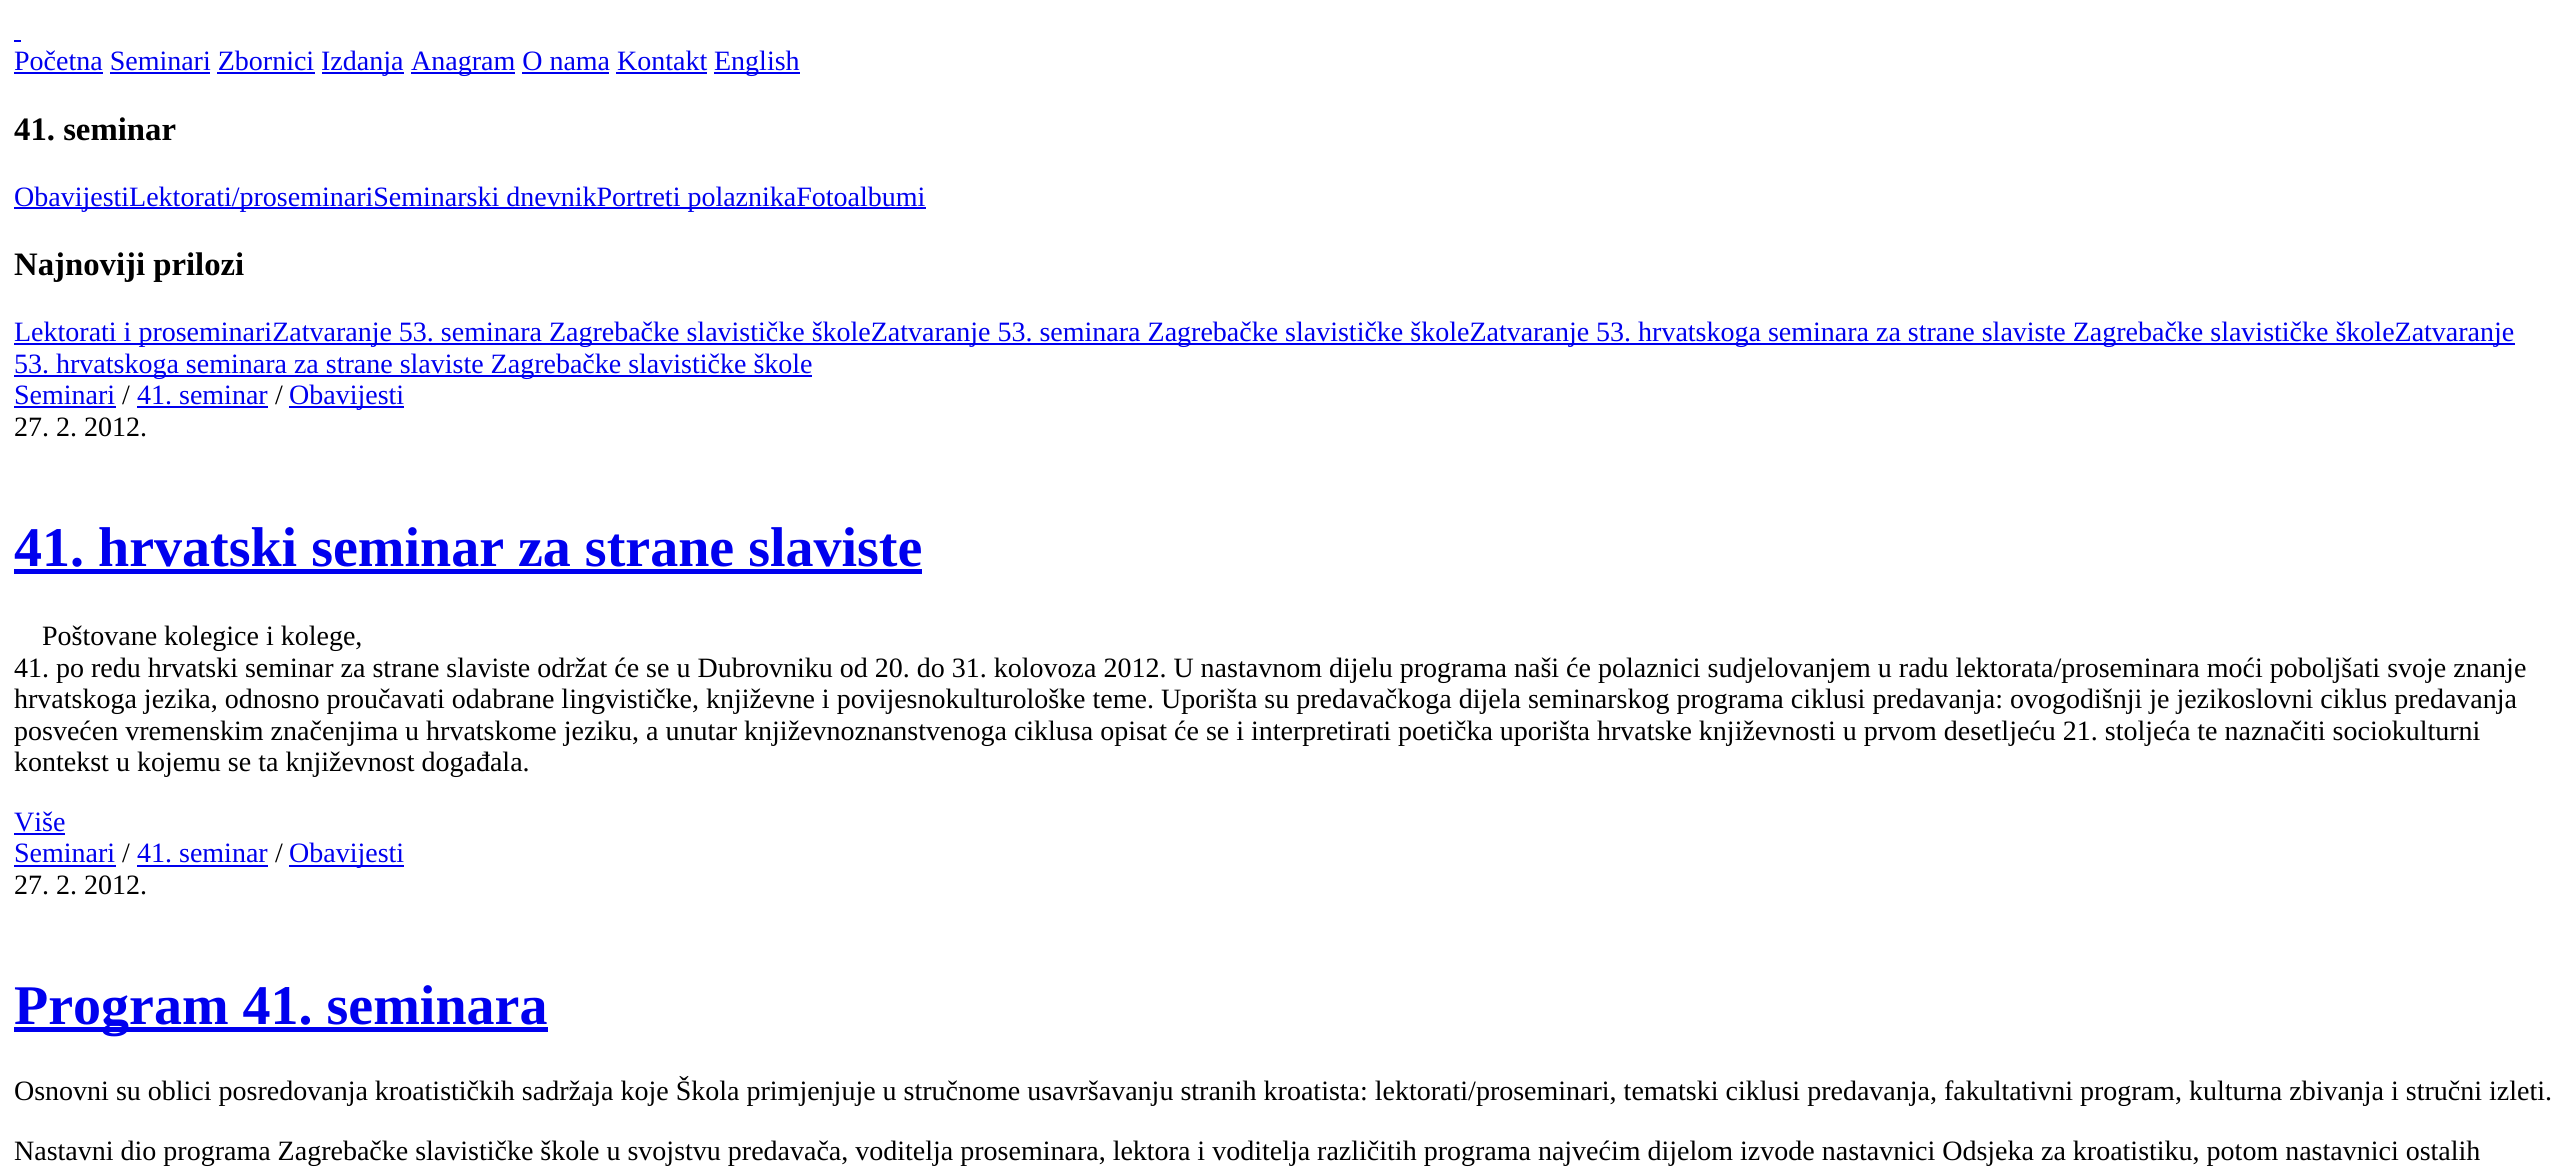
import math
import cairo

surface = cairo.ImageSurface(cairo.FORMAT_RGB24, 2568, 1176)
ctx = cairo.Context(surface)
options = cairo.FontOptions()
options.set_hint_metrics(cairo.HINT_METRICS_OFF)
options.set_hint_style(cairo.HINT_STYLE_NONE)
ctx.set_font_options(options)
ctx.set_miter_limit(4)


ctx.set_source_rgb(1, 1, 1)
ctx.paint()
ctx.set_source_rgb(0, 0, 0.933)
ctx.rectangle(14, 40, 7, 2)
ctx.fill()
ctx.select_font_face("Liberation Serif")
ctx.set_font_size(28)
ctx.move_to(14, 70)
ctx.show_text("Početna Seminari Zbornici")
ctx.rectangle(14, 72, 89, 2)
ctx.fill()
ctx.rectangle(322, 72, 82, 2)
ctx.fill()
ctx.move_to(321, 70)
ctx.show_text("Izdanja")
ctx.rectangle(411, 72, 104, 2)
ctx.fill()
ctx.move_to(411, 70)
ctx.show_text("Anagram O nama Kontakt")
ctx.rectangle(714, 72, 86, 2)
ctx.fill()
ctx.move_to(714, 70)
ctx.show_text("English")
ctx.rectangle(110, 72, 100, 2)
ctx.fill()
ctx.rectangle(217, 72, 98, 2)
ctx.fill()
ctx.rectangle(522, 72, 87, 2)
ctx.fill()
ctx.rectangle(616, 72, 91, 2)
ctx.fill()
ctx.select_font_face("Liberation Serif", cairo.FONT_SLANT_NORMAL, cairo.FONT_WEIGHT_BOLD)
ctx.set_font_size(32.75)
ctx.set_source_rgb(0, 0, 0)
ctx.move_to(14, 140)
ctx.show_text("41. seminar")
ctx.set_source_rgb(0, 0, 0.933)
ctx.rectangle(14, 207, 912, 2)
ctx.fill()
ctx.select_font_face("Liberation Serif")
ctx.set_font_size(28)
ctx.move_to(14, 206)
ctx.show_text("ObavijestiLektorati/proseminariSeminarski dnevnikPortreti polaznikaFotoalbumi")
ctx.select_font_face("Liberation Serif", cairo.FONT_SLANT_NORMAL, cairo.FONT_WEIGHT_BOLD)
ctx.set_font_size(32.75)
ctx.set_source_rgb(0, 0, 0)
ctx.move_to(14, 275)
ctx.show_text("Najnoviji prilozi")
ctx.set_source_rgb(0, 0, 0.933)
ctx.rectangle(14, 343, 2501, 2)
ctx.fill()
ctx.select_font_face("Liberation Serif")
ctx.set_font_size(28)
ctx.move_to(14, 341)
ctx.show_text("Lektorati i proseminariZatvaranje 53. seminara Zagrebačke slavističke školeZatvaranje 53. seminara Zagrebačke slavističke školeZatvaranje 53. hrvatskoga seminara za strane slaviste Zagrebačke slavističke školeZatvaranje")
ctx.rectangle(14, 375, 798, 2)
ctx.fill()
ctx.move_to(14, 373)
ctx.show_text("53. hrvatskoga seminara za strane slaviste Zagrebačke slavističke škole")
ctx.move_to(14, 404)
ctx.show_text("Seminari")
ctx.rectangle(14, 406, 102, 2)
ctx.fill()
ctx.set_source_rgb(0, 0, 0)
ctx.move_to(122, 404)
ctx.show_text("/")
ctx.set_source_rgb(0, 0, 0.933)
ctx.move_to(137, 404)
ctx.show_text("41. seminar")
ctx.rectangle(137, 406, 131, 2)
ctx.fill()
ctx.set_source_rgb(0, 0, 0)
ctx.move_to(275, 404)
ctx.show_text("/")
ctx.set_source_rgb(0, 0, 0.933)
ctx.rectangle(289, 406, 115, 2)
ctx.fill()
ctx.move_to(289, 404)
ctx.show_text("Obavijesti")
ctx.set_source_rgb(0, 0, 0)
ctx.move_to(14, 436)
ctx.show_text("27. 2. 2012.")
ctx.select_font_face("Liberation Serif", cairo.FONT_SLANT_NORMAL, cairo.FONT_WEIGHT_BOLD)
ctx.set_font_size(56)
ctx.set_source_rgb(0, 0, 0.933)
ctx.move_to(14, 566)
ctx.show_text("41. hrvatski seminar za strane slaviste")
ctx.rectangle(14, 569, 908, 5)
ctx.fill()
ctx.select_font_face("Liberation Serif")
ctx.set_font_size(28)
ctx.set_source_rgb(0, 0, 0)
ctx.move_to(42, 645)
ctx.show_text("Poštovane kolegice i kolege,")
ctx.move_to(14, 677)
ctx.show_text("41. po redu hrvatski seminar za strane slaviste održat će se u Dubrovniku od 20. do 31. kolovoza 2012. U nastavnom dijelu programa naši će polaznici sudjelovanjem u radu lektorata/proseminara moći poboljšati svoje znanje")
ctx.move_to(14, 708)
ctx.show_text("hrvatskoga jezika, odnosno proučavati odabrane lingvističke, književne i povijesnokulturološke teme. Uporišta su predavačkoga dijela seminarskog programa ciklusi predavanja: ovogodišnji je jezikoslovni ciklus predavanja")
ctx.move_to(14, 740)
ctx.show_text("posvećen vremenskim značenjima u hrvatskome jeziku, a unutar književnoznanstvenoga ciklusa opisat će se i interpretirati poetička uporišta hrvatske književnosti u prvom desetljeću 21. stoljeća te naznačiti sociokulturni")
ctx.move_to(14, 771)
ctx.show_text("kontekst u kojemu se ta književnost događala.")
ctx.set_source_rgb(0, 0, 0.933)
ctx.move_to(14, 831)
ctx.show_text("Više")
ctx.rectangle(14, 833, 51, 2)
ctx.fill()
ctx.move_to(14, 862)
ctx.show_text("Seminari")
ctx.rectangle(14, 865, 102, 2)
ctx.fill()
ctx.set_source_rgb(0, 0, 0)
ctx.move_to(122, 862)
ctx.show_text("/")
ctx.set_source_rgb(0, 0, 0.933)
ctx.move_to(137, 862)
ctx.show_text("41. seminar")
ctx.rectangle(137, 865, 131, 2)
ctx.fill()
ctx.set_source_rgb(0, 0, 0)
ctx.move_to(275, 862)
ctx.show_text("/")
ctx.set_source_rgb(0, 0, 0.933)
ctx.rectangle(289, 865, 115, 2)
ctx.fill()
ctx.move_to(289, 862)
ctx.show_text("Obavijesti")
ctx.set_source_rgb(0, 0, 0)
ctx.move_to(14, 894)
ctx.show_text("27. 2. 2012.")
ctx.set_source_rgb(0, 0, 0.933)
ctx.rectangle(14, 1027, 534, 5)
ctx.fill()
ctx.select_font_face("Liberation Serif", cairo.FONT_SLANT_NORMAL, cairo.FONT_WEIGHT_BOLD)
ctx.set_font_size(56)
ctx.move_to(14, 1024)
ctx.show_text("Program 41. seminara")
ctx.select_font_face("Liberation Serif")
ctx.set_font_size(28)
ctx.set_source_rgb(0, 0, 0)
ctx.move_to(14, 1100)
ctx.show_text("Osnovni su oblici posredovanja kroatističkih sadržaja koje Škola primjenjuje u stručnome usavršavanju stranih kroatista: lektorati/proseminari, tematski ciklusi predavanja, fakultativni program, kulturna zbivanja i stručni izleti.")
ctx.move_to(14, 1160)
ctx.show_text("Nastavni dio programa Zagrebačke slavističke škole u svojstvu predavača, voditelja proseminara, lektora i voditelja različitih programa najvećim dijelom izvode nastavnici Odsjeka za kroatistiku, potom nastavnici ostalih")
surface.write_to_png("page.png")
